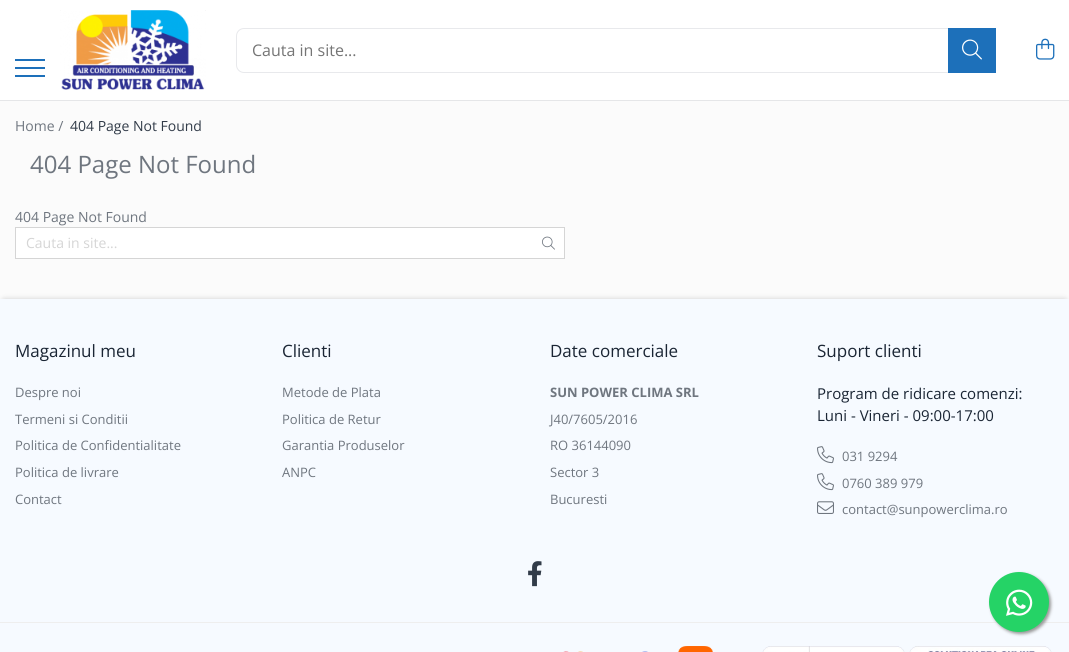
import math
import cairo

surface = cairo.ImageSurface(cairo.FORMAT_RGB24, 1069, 652)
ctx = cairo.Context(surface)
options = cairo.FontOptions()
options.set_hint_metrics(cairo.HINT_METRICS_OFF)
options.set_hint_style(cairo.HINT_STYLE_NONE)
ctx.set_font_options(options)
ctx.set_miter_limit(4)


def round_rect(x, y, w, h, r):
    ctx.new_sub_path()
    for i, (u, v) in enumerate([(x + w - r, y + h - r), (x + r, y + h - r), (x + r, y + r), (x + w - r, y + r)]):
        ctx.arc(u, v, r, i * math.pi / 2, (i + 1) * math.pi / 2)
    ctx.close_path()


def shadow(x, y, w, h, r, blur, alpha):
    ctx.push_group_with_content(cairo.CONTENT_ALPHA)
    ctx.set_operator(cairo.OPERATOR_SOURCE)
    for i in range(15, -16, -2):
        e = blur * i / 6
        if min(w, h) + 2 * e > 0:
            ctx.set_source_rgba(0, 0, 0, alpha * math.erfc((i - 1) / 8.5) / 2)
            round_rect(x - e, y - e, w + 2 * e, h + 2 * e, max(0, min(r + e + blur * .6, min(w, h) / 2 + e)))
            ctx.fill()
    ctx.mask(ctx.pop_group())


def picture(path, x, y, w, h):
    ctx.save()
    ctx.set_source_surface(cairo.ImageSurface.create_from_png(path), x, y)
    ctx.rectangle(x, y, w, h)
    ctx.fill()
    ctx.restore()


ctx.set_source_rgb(0.984, 0.984, 0.984)
ctx.paint()
ctx.set_source_rgb(1, 1, 1)
ctx.rectangle(0, 0, 1069, 100)
ctx.fill()
ctx.set_source_rgb(0.898, 0.902, 0.91)
ctx.rectangle(0, 100, 1069, 1)
ctx.fill()
picture("img1.png", 60, 10, 146, 80)
round_rect(236.5, 28.5, 759, 44, 7.5)
ctx.set_source_rgb(0.91, 0.914, 0.922)
ctx.set_line_width(1)
ctx.stroke()
ctx.select_font_face("Open Sans")
ctx.set_font_size(16)
ctx.set_source_rgb(0.459, 0.459, 0.459)
ctx.move_to(252, 56)
ctx.show_text("Cauta in site...")
ctx.set_source_rgb(0.114, 0.439, 0.729)
ctx.rectangle(948, 28, 48, 45)
ctx.fill()
picture("img2.png", 962, 39, 20, 21)
picture("img3.png", 1036, 38, 19, 22)
ctx.rectangle(15, 67, 30, 2)
ctx.fill()
ctx.rectangle(15, 59, 30, 2)
ctx.fill()
ctx.rectangle(15, 75, 30, 2)
ctx.fill()
ctx.set_font_size(14)
ctx.set_source_rgb(0.435, 0.463, 0.498)
ctx.move_to(15, 131)
ctx.show_text("Home /")
ctx.set_source_rgb(0.196, 0.235, 0.286)
ctx.move_to(70, 131)
ctx.show_text("404 Page Not Found")
ctx.set_font_size(24)
ctx.set_source_rgb(0.435, 0.463, 0.498)
ctx.move_to(30, 173)
ctx.show_text("404 Page Not Found")
ctx.set_font_size(14)
ctx.move_to(15, 222)
ctx.show_text("404 Page Not Found")
ctx.set_source_rgb(1, 1, 1)
ctx.rectangle(15.5, 227.5, 549, 31)
ctx.fill_preserve()
ctx.set_source_rgb(0.835, 0.835, 0.835)
ctx.stroke()
ctx.move_to(26, 248)
ctx.show_text("Cauta in site...")
picture("img4.png", 542, 236, 13, 14)
ctx.set_source_rgb(0, 0, 0)
shadow(4, 301, 1061, 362, 0, 3.5, 0.3)
ctx.set_source_rgb(0.961, 0.98, 1)
ctx.rectangle(0, 299, 1069, 353)
ctx.fill()
ctx.set_font_size(17)
ctx.set_source_rgb(0.102, 0.145, 0.204)
ctx.move_to(15, 357)
ctx.show_text("Magazinul meu")
ctx.set_font_size(13)
ctx.set_source_rgb(0.435, 0.463, 0.498)
ctx.move_to(15, 397)
ctx.show_text("Despre noi")
ctx.move_to(15, 424)
ctx.show_text("Termeni si Conditii")
ctx.move_to(15, 450)
ctx.show_text("Politica de Confidentialitate")
ctx.move_to(15, 477)
ctx.show_text("Politica de livrare")
ctx.move_to(15, 504)
ctx.show_text("Contact")
ctx.set_font_size(17)
ctx.set_source_rgb(0.102, 0.145, 0.204)
ctx.move_to(282, 357)
ctx.show_text("Clienti")
ctx.set_font_size(13)
ctx.set_source_rgb(0.435, 0.463, 0.498)
ctx.move_to(282, 397)
ctx.show_text("Metode de Plata")
ctx.move_to(282, 424)
ctx.show_text("Politica de Retur")
ctx.move_to(282, 450)
ctx.show_text("Garantia Produselor")
ctx.move_to(282, 477)
ctx.show_text("ANPC")
ctx.set_font_size(17)
ctx.set_source_rgb(0.102, 0.145, 0.204)
ctx.move_to(550, 357)
ctx.show_text("Date comerciale")
ctx.select_font_face("Open Sans", cairo.FONT_SLANT_NORMAL, cairo.FONT_WEIGHT_BOLD)
ctx.set_font_size(13)
ctx.set_source_rgb(0.435, 0.463, 0.498)
ctx.move_to(550, 397)
ctx.show_text("SUN POWER CLIMA SRL")
ctx.select_font_face("Open Sans")
ctx.move_to(550, 424)
ctx.show_text("J40/7605/2016")
ctx.move_to(550, 450)
ctx.show_text("RO 36144090")
ctx.move_to(550, 477)
ctx.show_text("Sector 3")
ctx.move_to(550, 504)
ctx.show_text("Bucuresti")
ctx.set_font_size(17)
ctx.set_source_rgb(0.102, 0.145, 0.204)
ctx.move_to(817, 357)
ctx.show_text("Suport clienti")
ctx.set_font_size(15)
ctx.move_to(817, 399)
ctx.show_text("Program de ridicare comenzi:")
ctx.move_to(817, 421)
ctx.show_text("Luni - Vineri - 09:00-17:00")
picture("img5.png", 817, 446, 17, 18)
ctx.set_font_size(13)
ctx.set_source_rgb(0.435, 0.463, 0.498)
ctx.move_to(842, 461)
ctx.show_text("031 9294")
picture("img5.png", 817, 473, 17, 18)
ctx.move_to(842, 488)
ctx.show_text("0760 389 979")
picture("img6.png", 817, 501, 17, 13)
ctx.move_to(842, 514)
ctx.show_text("contact@sunpowerclima.ro")
picture("img7.png", 528, 561, 14, 26)
ctx.set_source_rgb(0.933, 0.933, 0.933)
ctx.rectangle(0, 622, 1069, 1)
ctx.fill()
picture("img8.png", 563, 651, 85, 1)
picture("img9.png", 678, 646, 35, 6)
picture("img10.png", 762, 646, 143, 6)
picture("img11.png", 909, 646, 143, 6)
ctx.set_source_rgb(0.6, 0.6, 0.6)
shadow(991, 574, 60, 60, 30, 1.5, 1)
ctx.set_source_rgb(0.145, 0.827, 0.4)
ctx.arc(1019, 602, 30, 0, 2 * math.pi)
ctx.fill()
picture("img12.png", 1006, 589, 27, 27)
surface.write_to_png("page.png")
